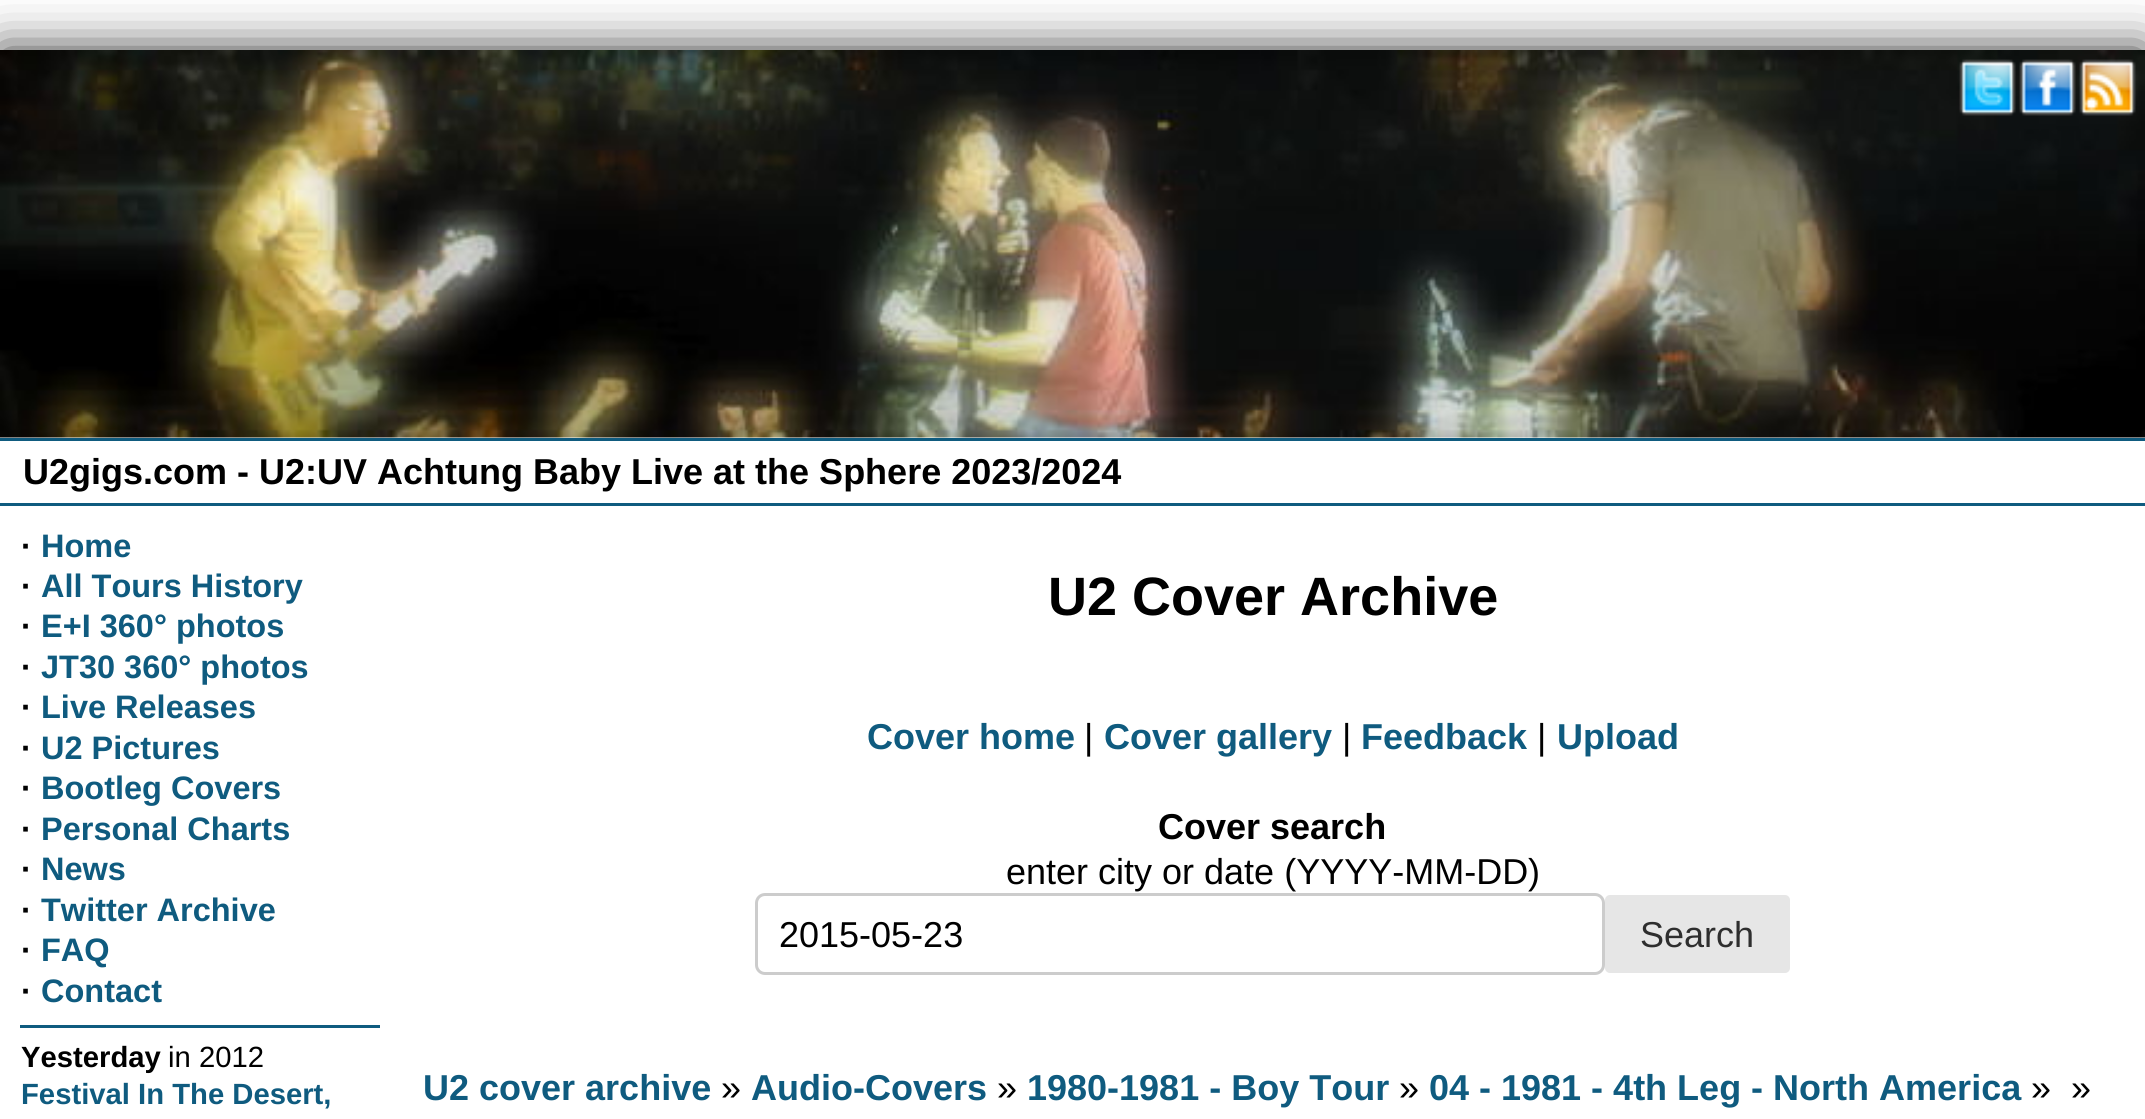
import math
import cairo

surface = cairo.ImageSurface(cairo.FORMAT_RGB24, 2145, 1119)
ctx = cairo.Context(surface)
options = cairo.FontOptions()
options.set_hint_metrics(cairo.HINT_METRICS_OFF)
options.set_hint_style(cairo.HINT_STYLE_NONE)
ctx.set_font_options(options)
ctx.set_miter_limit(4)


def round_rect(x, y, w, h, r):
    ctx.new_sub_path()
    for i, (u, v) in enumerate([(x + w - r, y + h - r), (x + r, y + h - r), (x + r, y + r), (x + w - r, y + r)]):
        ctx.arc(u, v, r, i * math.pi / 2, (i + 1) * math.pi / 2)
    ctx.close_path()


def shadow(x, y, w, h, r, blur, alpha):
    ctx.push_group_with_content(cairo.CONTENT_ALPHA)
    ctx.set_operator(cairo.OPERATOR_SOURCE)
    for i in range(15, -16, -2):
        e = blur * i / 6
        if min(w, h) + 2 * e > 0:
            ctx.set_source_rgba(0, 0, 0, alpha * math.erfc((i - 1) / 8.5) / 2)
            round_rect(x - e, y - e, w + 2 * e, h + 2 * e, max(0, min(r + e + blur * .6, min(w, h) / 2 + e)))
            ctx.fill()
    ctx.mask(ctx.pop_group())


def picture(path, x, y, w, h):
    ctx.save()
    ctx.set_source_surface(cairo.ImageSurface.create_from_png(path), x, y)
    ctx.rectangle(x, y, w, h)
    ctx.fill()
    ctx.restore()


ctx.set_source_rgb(1, 1, 1)
ctx.paint()
ctx.save()
ctx.rectangle(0, 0, 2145, 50)
ctx.clip()
ctx.set_source_rgb(0.2, 0.2, 0.2)
shadow(0, 50, 2145, 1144, 0, 25, 1)
ctx.restore()
picture("img1.png", 0, 50, 2145, 388)
picture("img2.png", 1959, 59, 57, 57)
picture("img3.png", 2019, 59, 57, 57)
picture("img4.png", 2079, 59, 57, 57)
ctx.set_source_rgb(0.059, 0.357, 0.498)
ctx.rectangle(0, 438, 2145, 3)
ctx.fill()
ctx.rectangle(0, 503, 2145, 3)
ctx.fill()
ctx.select_font_face("Liberation Sans", cairo.FONT_SLANT_NORMAL, cairo.FONT_WEIGHT_BOLD)
ctx.set_font_size(36)
ctx.set_source_rgb(0, 0, 0)
ctx.move_to(23, 484)
ctx.show_text("U2gigs.com - U2:UV Achtung Baby Live at the Sphere 2023/2024")
ctx.set_font_size(32.5)
ctx.move_to(21, 557)
ctx.show_text("·")
ctx.set_source_rgb(0.059, 0.357, 0.498)
ctx.move_to(41, 557)
ctx.show_text("Home")
ctx.set_source_rgb(0, 0, 0)
ctx.move_to(21, 597)
ctx.show_text("·")
ctx.set_source_rgb(0.059, 0.357, 0.498)
ctx.move_to(41, 597)
ctx.show_text("All Tours History")
ctx.set_source_rgb(0, 0, 0)
ctx.move_to(21, 637)
ctx.show_text("·")
ctx.set_source_rgb(0.059, 0.357, 0.498)
ctx.move_to(41, 637)
ctx.show_text("E+I 360° photos")
ctx.set_source_rgb(0, 0, 0)
ctx.move_to(21, 678)
ctx.show_text("·")
ctx.set_source_rgb(0.059, 0.357, 0.498)
ctx.move_to(41, 678)
ctx.show_text("JT30 360° photos")
ctx.set_source_rgb(0, 0, 0)
ctx.move_to(21, 718)
ctx.show_text("·")
ctx.set_source_rgb(0.059, 0.357, 0.498)
ctx.move_to(41, 718)
ctx.show_text("Live Releases")
ctx.set_source_rgb(0, 0, 0)
ctx.move_to(21, 759)
ctx.show_text("·")
ctx.set_source_rgb(0.059, 0.357, 0.498)
ctx.move_to(41, 759)
ctx.show_text("U2 Pictures")
ctx.set_source_rgb(0, 0, 0)
ctx.move_to(21, 799)
ctx.show_text("·")
ctx.set_source_rgb(0.059, 0.357, 0.498)
ctx.move_to(41, 799)
ctx.show_text("Bootleg Covers")
ctx.set_source_rgb(0, 0, 0)
ctx.move_to(21, 840)
ctx.show_text("·")
ctx.set_source_rgb(0.059, 0.357, 0.498)
ctx.move_to(41, 840)
ctx.show_text("Personal Charts")
ctx.set_source_rgb(0, 0, 0)
ctx.move_to(21, 880)
ctx.show_text("·")
ctx.set_source_rgb(0.059, 0.357, 0.498)
ctx.move_to(41, 880)
ctx.show_text("News")
ctx.set_source_rgb(0, 0, 0)
ctx.move_to(21, 921)
ctx.show_text("·")
ctx.set_source_rgb(0.059, 0.357, 0.498)
ctx.move_to(41, 921)
ctx.show_text("Twitter Archive")
ctx.set_source_rgb(0, 0, 0)
ctx.move_to(21, 961)
ctx.show_text("·")
ctx.set_source_rgb(0.059, 0.357, 0.498)
ctx.move_to(41, 961)
ctx.show_text("FAQ")
ctx.set_source_rgb(0, 0, 0)
ctx.move_to(21, 1002)
ctx.show_text("·")
ctx.set_source_rgb(0.059, 0.357, 0.498)
ctx.move_to(41, 1002)
ctx.show_text("Contact")
ctx.rectangle(20, 1025, 360, 3)
ctx.fill()
ctx.set_font_size(29.25)
ctx.set_source_rgb(0, 0, 0)
ctx.move_to(21, 1067)
ctx.show_text("Yesterday")
ctx.select_font_face("Liberation Sans")
ctx.move_to(168, 1067)
ctx.show_text("in 2012")
ctx.select_font_face("Liberation Sans", cairo.FONT_SLANT_NORMAL, cairo.FONT_WEIGHT_BOLD)
ctx.set_source_rgb(0.059, 0.357, 0.498)
ctx.move_to(21, 1104)
ctx.show_text("Festival In The Desert,")
ctx.set_font_size(54)
ctx.set_source_rgb(0, 0, 0)
ctx.move_to(1048, 615)
ctx.show_text("U2 Cover Archive")
ctx.set_font_size(36)
ctx.set_source_rgb(0.059, 0.357, 0.498)
ctx.move_to(867, 749)
ctx.show_text("Cover home")
ctx.select_font_face("Liberation Sans")
ctx.set_source_rgb(0, 0, 0)
ctx.move_to(1084, 749)
ctx.show_text("|")
ctx.select_font_face("Liberation Sans", cairo.FONT_SLANT_NORMAL, cairo.FONT_WEIGHT_BOLD)
ctx.set_source_rgb(0.059, 0.357, 0.498)
ctx.move_to(1104, 749)
ctx.show_text("Cover gallery")
ctx.select_font_face("Liberation Sans")
ctx.set_source_rgb(0, 0, 0)
ctx.move_to(1342, 749)
ctx.show_text("|")
ctx.select_font_face("Liberation Sans", cairo.FONT_SLANT_NORMAL, cairo.FONT_WEIGHT_BOLD)
ctx.set_source_rgb(0.059, 0.357, 0.498)
ctx.move_to(1361, 749)
ctx.show_text("Feedback")
ctx.select_font_face("Liberation Sans")
ctx.set_source_rgb(0, 0, 0)
ctx.move_to(1537, 749)
ctx.show_text("|")
ctx.select_font_face("Liberation Sans", cairo.FONT_SLANT_NORMAL, cairo.FONT_WEIGHT_BOLD)
ctx.set_source_rgb(0.059, 0.357, 0.498)
ctx.move_to(1557, 749)
ctx.show_text("Upload")
ctx.set_source_rgb(0, 0, 0)
ctx.move_to(1158, 839)
ctx.show_text("Cover search")
ctx.select_font_face("Liberation Sans")
ctx.move_to(1006, 884)
ctx.show_text("enter city or date (YYYY-MM-DD)")
round_rect(756.5, 894.5, 847, 79, 8.5)
ctx.set_source_rgb(0.8, 0.8, 0.8)
ctx.set_line_width(3)
ctx.stroke()
ctx.set_source_rgb(0, 0, 0)
ctx.move_to(779, 947)
ctx.show_text("2015-05-23")
ctx.set_source_rgb(0.902, 0.902, 0.902)
round_rect(1605, 895, 185, 78, 5)
ctx.fill()
ctx.set_source_rgb(0.18, 0.18, 0.18)
ctx.move_to(1640, 947)
ctx.show_text("Search")
ctx.select_font_face("Liberation Sans", cairo.FONT_SLANT_NORMAL, cairo.FONT_WEIGHT_BOLD)
ctx.set_source_rgb(0.059, 0.357, 0.498)
ctx.move_to(423, 1100)
ctx.show_text("U2 cover archive")
ctx.select_font_face("Liberation Sans")
ctx.set_source_rgb(0, 0, 0)
ctx.move_to(721, 1100)
ctx.show_text("»")
ctx.select_font_face("Liberation Sans", cairo.FONT_SLANT_NORMAL, cairo.FONT_WEIGHT_BOLD)
ctx.set_source_rgb(0.059, 0.357, 0.498)
ctx.move_to(751, 1100)
ctx.show_text("Audio-Covers")
ctx.select_font_face("Liberation Sans")
ctx.set_source_rgb(0, 0, 0)
ctx.move_to(997, 1100)
ctx.show_text("»")
ctx.select_font_face("Liberation Sans", cairo.FONT_SLANT_NORMAL, cairo.FONT_WEIGHT_BOLD)
ctx.set_source_rgb(0.059, 0.357, 0.498)
ctx.move_to(1027, 1100)
ctx.show_text("1980-1981 - Boy Tour")
ctx.select_font_face("Liberation Sans")
ctx.set_source_rgb(0, 0, 0)
ctx.move_to(1399, 1100)
ctx.show_text("»")
ctx.select_font_face("Liberation Sans", cairo.FONT_SLANT_NORMAL, cairo.FONT_WEIGHT_BOLD)
ctx.set_source_rgb(0.059, 0.357, 0.498)
ctx.move_to(1429, 1100)
ctx.show_text("04 - 1981 - 4th Leg - North America")
ctx.select_font_face("Liberation Sans")
ctx.set_source_rgb(0, 0, 0)
ctx.move_to(2031, 1100)
ctx.show_text("»  »")
surface.write_to_png("page.png")
